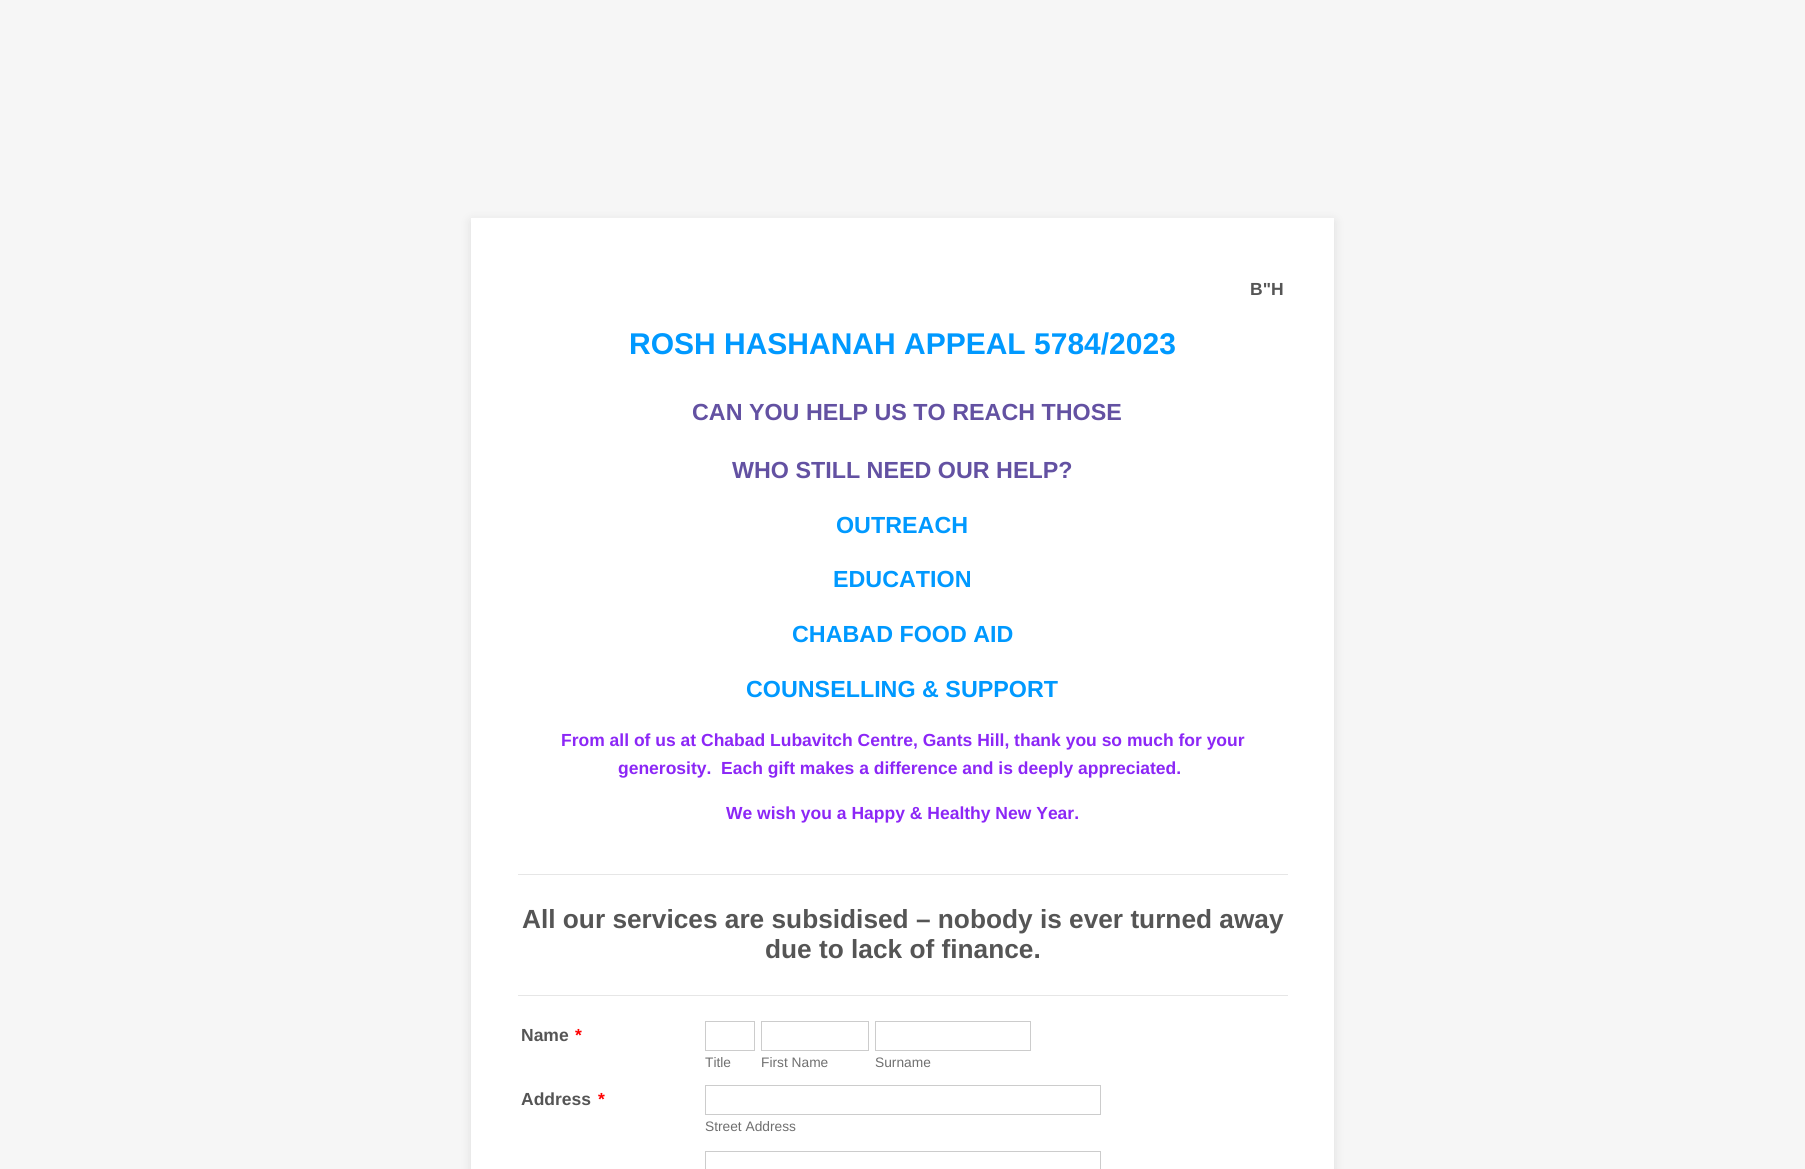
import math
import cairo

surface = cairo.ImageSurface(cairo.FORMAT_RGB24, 1805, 1169)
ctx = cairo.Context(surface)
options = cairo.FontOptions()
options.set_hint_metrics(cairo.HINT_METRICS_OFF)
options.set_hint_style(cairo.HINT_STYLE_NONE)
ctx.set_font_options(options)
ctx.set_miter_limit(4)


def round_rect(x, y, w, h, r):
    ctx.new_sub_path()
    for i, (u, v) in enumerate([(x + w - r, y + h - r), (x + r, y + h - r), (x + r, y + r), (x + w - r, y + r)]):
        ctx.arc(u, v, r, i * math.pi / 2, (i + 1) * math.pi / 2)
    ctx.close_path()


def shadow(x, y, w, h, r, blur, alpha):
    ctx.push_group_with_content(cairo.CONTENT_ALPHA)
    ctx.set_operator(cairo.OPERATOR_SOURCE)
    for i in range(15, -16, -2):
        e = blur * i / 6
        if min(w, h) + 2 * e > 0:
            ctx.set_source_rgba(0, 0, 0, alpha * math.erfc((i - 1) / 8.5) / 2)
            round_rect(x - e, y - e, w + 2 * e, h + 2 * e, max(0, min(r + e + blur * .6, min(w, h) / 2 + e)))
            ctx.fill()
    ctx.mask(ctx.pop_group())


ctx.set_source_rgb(0.961, 0.961, 0.961)
ctx.paint()
ctx.set_source_rgb(0, 0, 0)
shadow(471, 221, 863, 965, 0, 5.5, 0.1)
ctx.set_source_rgb(1, 1, 1)
ctx.rectangle(471, 218, 863, 951)
ctx.fill()
ctx.select_font_face("Liberation Sans", cairo.FONT_SLANT_NORMAL, cairo.FONT_WEIGHT_BOLD)
ctx.set_font_size(17.5)
ctx.set_source_rgb(0.333, 0.333, 0.333)
ctx.move_to(1250, 295)
ctx.show_text("B\"H")
ctx.set_font_size(30)
ctx.set_source_rgb(0, 0.6, 1)
ctx.move_to(629, 354)
ctx.show_text("ROSH HASHANAH APPEAL 5784/2023")
ctx.set_font_size(23.3)
ctx.set_source_rgb(0.388, 0.318, 0.635)
ctx.move_to(692, 420)
ctx.show_text("CAN YOU HELP US TO REACH THOSE")
ctx.move_to(732, 478)
ctx.show_text("WHO STILL NEED OUR HELP?")
ctx.set_source_rgb(0, 0.6, 1)
ctx.move_to(836, 533)
ctx.show_text("OUTREACH")
ctx.move_to(833, 587)
ctx.show_text("EDUCATION")
ctx.move_to(792, 642)
ctx.show_text("CHABAD FOOD AID")
ctx.move_to(746, 697)
ctx.show_text("COUNSELLING & SUPPORT")
ctx.set_font_size(17.5)
ctx.set_source_rgb(0.549, 0.153, 0.961)
ctx.move_to(561, 746)
ctx.show_text("From all of us at Chabad Lubavitch Centre, Gants Hill, thank you so much for your")
ctx.move_to(618, 774)
ctx.show_text("generosity.  Each gift makes a difference and is deeply appreciated.")
ctx.move_to(726, 819)
ctx.show_text("We wish you a Happy & Healthy New Year.")
ctx.set_source_rgb(0.902, 0.902, 0.902)
ctx.rectangle(518, 874, 770, 1)
ctx.fill()
ctx.rectangle(518, 995, 770, 1)
ctx.fill()
ctx.set_font_size(26.25)
ctx.set_source_rgb(0.333, 0.333, 0.333)
ctx.move_to(522, 928)
ctx.show_text("All our services are subsidised – nobody is ever turned away")
ctx.move_to(765, 958)
ctx.show_text("due to lack of finance.")
ctx.set_font_size(17.5)
ctx.move_to(521, 1041)
ctx.show_text("Name")
ctx.set_source_rgb(1, 0, 0)
ctx.move_to(575, 1041)
ctx.show_text("*")
ctx.rectangle(705.5, 1021.5, 49, 29)
ctx.set_source_rgb(0.8, 0.8, 0.8)
ctx.set_line_width(1)
ctx.stroke()
ctx.select_font_face("Liberation Sans")
ctx.set_font_size(13.75)
ctx.set_source_rgb(0.435, 0.435, 0.435)
ctx.move_to(705, 1067)
ctx.show_text("Title")
ctx.rectangle(761.5, 1021.5, 107, 29)
ctx.set_source_rgb(0.8, 0.8, 0.8)
ctx.stroke()
ctx.set_source_rgb(0.435, 0.435, 0.435)
ctx.move_to(761, 1067)
ctx.show_text("First Name")
ctx.rectangle(875.5, 1021.5, 155, 29)
ctx.set_source_rgb(0.8, 0.8, 0.8)
ctx.stroke()
ctx.set_source_rgb(0.435, 0.435, 0.435)
ctx.move_to(875, 1067)
ctx.show_text("Surname")
ctx.select_font_face("Liberation Sans", cairo.FONT_SLANT_NORMAL, cairo.FONT_WEIGHT_BOLD)
ctx.set_font_size(17.5)
ctx.set_source_rgb(0.333, 0.333, 0.333)
ctx.move_to(521, 1105)
ctx.show_text("Address")
ctx.set_source_rgb(1, 0, 0)
ctx.move_to(598, 1105)
ctx.show_text("*")
ctx.rectangle(705.5, 1085.5, 395, 29)
ctx.set_source_rgb(0.8, 0.8, 0.8)
ctx.stroke()
ctx.select_font_face("Liberation Sans")
ctx.set_font_size(13.75)
ctx.set_source_rgb(0.435, 0.435, 0.435)
ctx.move_to(705, 1131)
ctx.show_text("Street Address")
ctx.rectangle(705.5, 1151.5, 395, 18)
ctx.set_source_rgb(0.8, 0.8, 0.8)
ctx.stroke()
surface.write_to_png("page.png")
